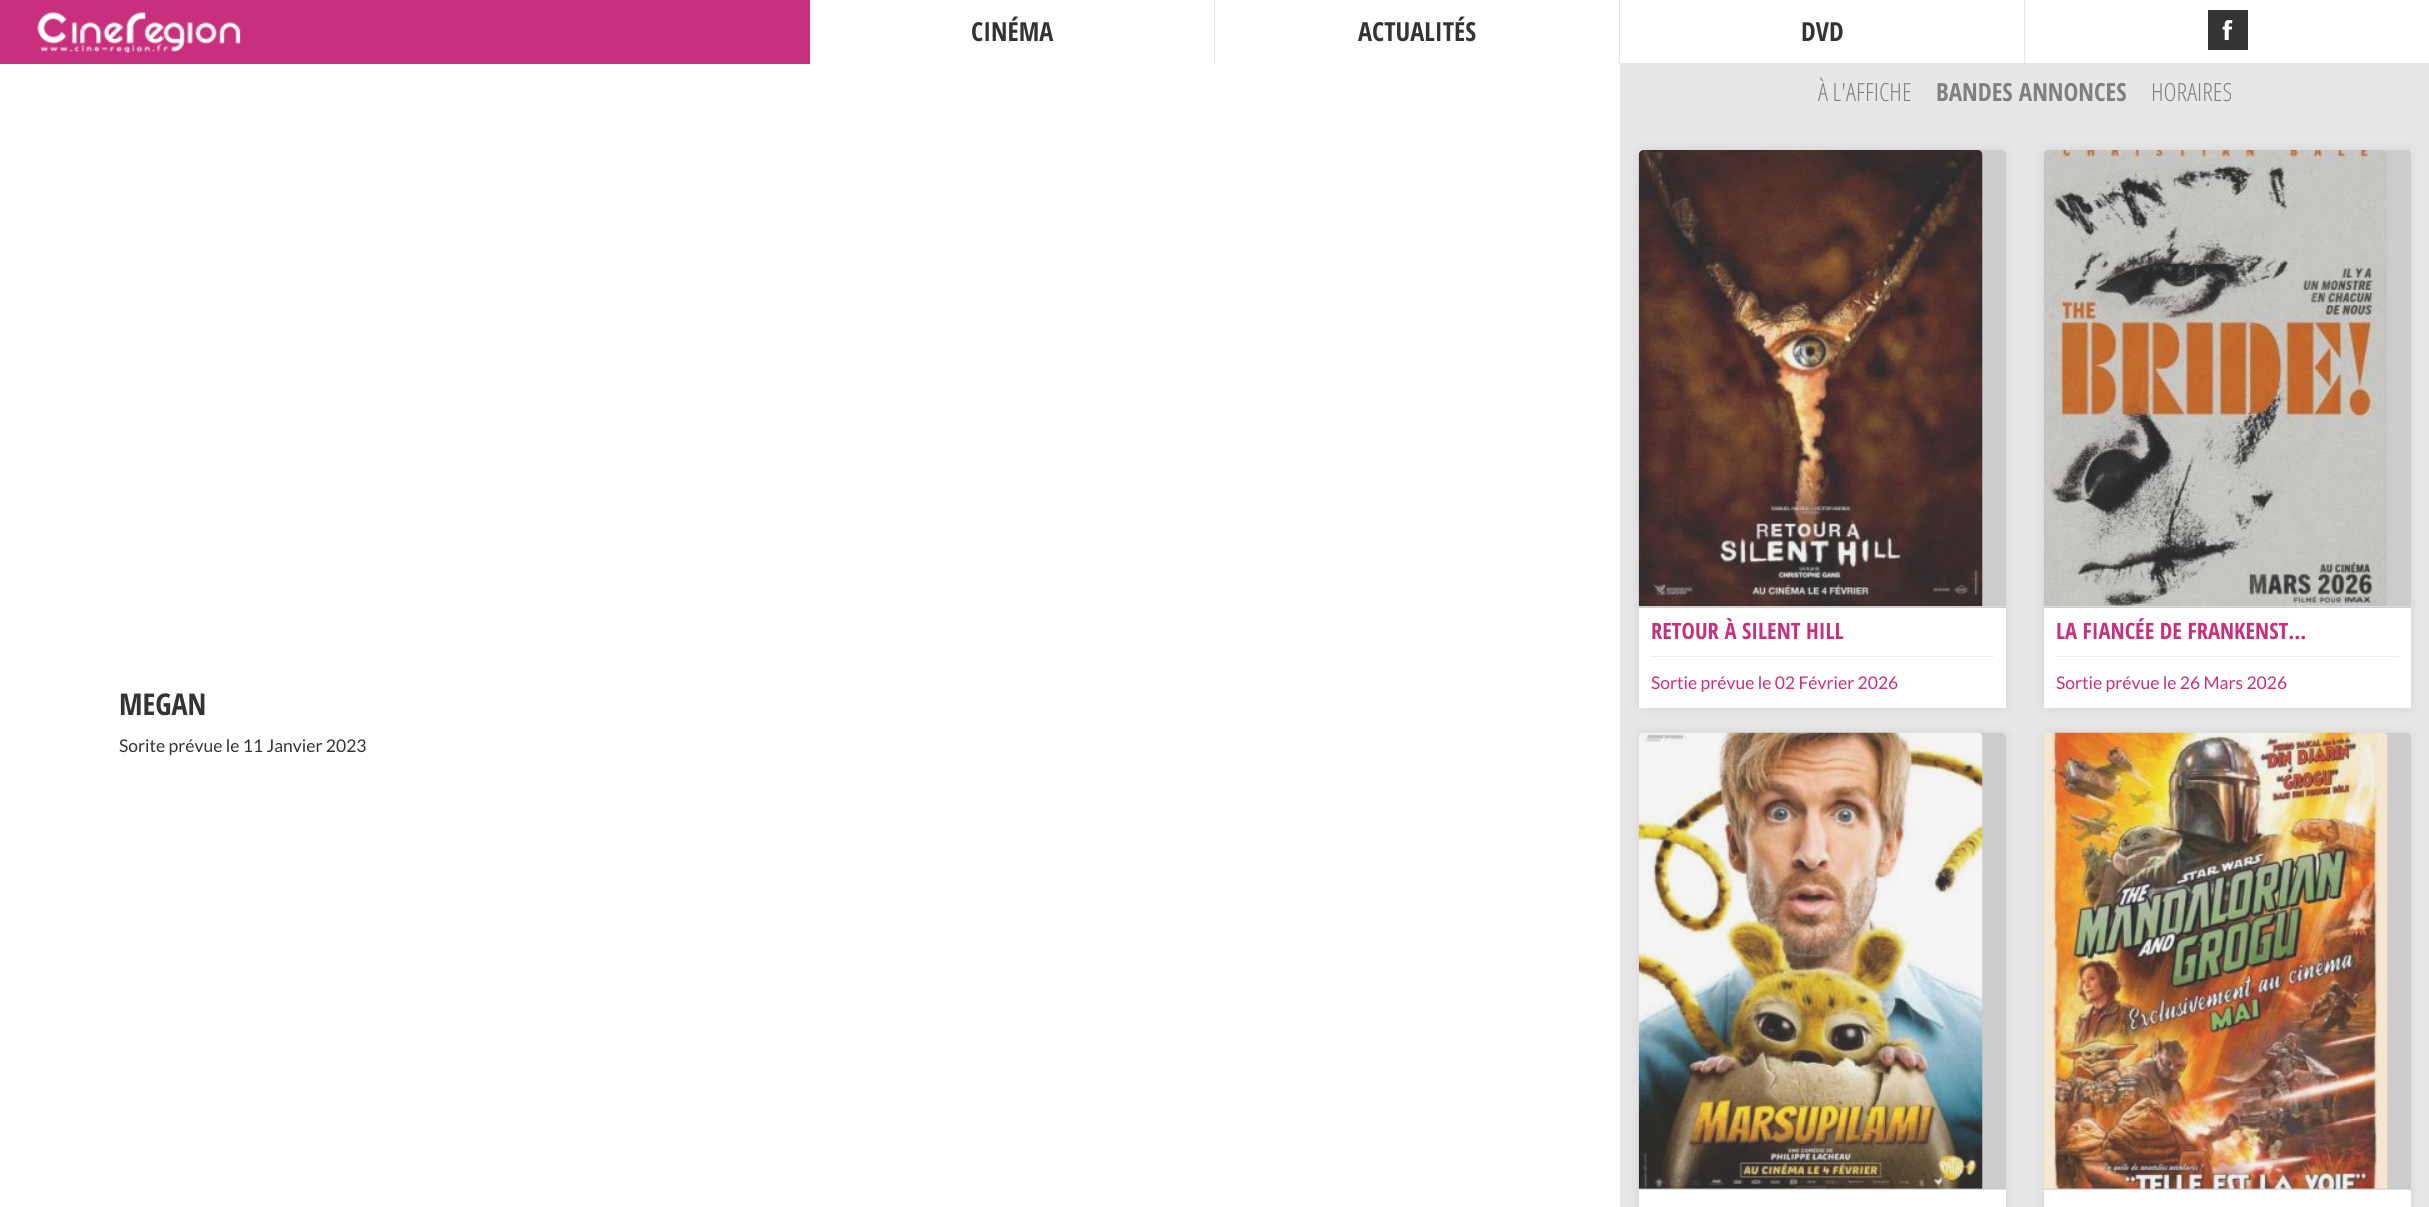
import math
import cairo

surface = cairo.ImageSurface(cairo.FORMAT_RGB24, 2429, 1207)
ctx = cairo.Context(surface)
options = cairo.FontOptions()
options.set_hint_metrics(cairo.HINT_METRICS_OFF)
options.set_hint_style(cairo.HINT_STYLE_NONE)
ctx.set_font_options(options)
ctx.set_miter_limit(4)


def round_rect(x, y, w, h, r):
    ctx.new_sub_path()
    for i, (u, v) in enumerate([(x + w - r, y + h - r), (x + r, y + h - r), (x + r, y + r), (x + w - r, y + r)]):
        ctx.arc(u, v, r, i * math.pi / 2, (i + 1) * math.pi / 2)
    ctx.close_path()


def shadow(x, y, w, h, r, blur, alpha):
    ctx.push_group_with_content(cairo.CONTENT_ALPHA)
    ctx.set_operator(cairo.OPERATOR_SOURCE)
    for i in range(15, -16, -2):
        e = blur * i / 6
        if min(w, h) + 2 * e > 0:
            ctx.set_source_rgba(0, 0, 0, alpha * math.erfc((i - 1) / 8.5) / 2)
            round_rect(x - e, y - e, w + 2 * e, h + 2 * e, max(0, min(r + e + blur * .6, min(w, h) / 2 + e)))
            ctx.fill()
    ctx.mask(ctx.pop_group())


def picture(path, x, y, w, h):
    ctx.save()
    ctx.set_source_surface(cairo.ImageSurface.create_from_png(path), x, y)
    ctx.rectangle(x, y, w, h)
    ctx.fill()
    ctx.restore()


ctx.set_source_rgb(1, 1, 1)
ctx.paint()
ctx.set_source_rgb(0.784, 0.184, 0.486)
ctx.rectangle(0, 0, 810, 64)
ctx.fill()
picture("img1.png", 37, 12, 204, 41)
ctx.set_source_rgb(0.902, 0.902, 0.902)
ctx.rectangle(1214, 0, 1, 63)
ctx.fill()
ctx.select_font_face("Open Sans Condensed", cairo.FONT_SLANT_NORMAL, cairo.FONT_WEIGHT_BOLD)
ctx.set_font_size(26.25)
ctx.set_source_rgb(0.2, 0.2, 0.2)
ctx.move_to(971, 41)
ctx.show_text("CINÉMA")
ctx.set_source_rgb(0.902, 0.902, 0.902)
ctx.rectangle(1619, 0, 1, 63)
ctx.fill()
ctx.set_source_rgb(0.2, 0.2, 0.2)
ctx.move_to(1358, 41)
ctx.show_text("ACTUALITÉS")
ctx.set_source_rgb(0.902, 0.902, 0.902)
ctx.rectangle(2024, 0, 1, 63)
ctx.fill()
ctx.set_source_rgb(0.2, 0.2, 0.2)
ctx.move_to(1801, 41)
ctx.show_text("DVD")
ctx.rectangle(2208, 10, 40, 40)
ctx.fill()
picture("img2.png", 2222, 20, 11, 21)
ctx.set_source_rgb(0.906, 0.906, 0.906)
ctx.rectangle(1620, 63, 809, 1144)
ctx.fill()
ctx.select_font_face("Open Sans Condensed Light")
ctx.set_font_size(25)
ctx.set_source_rgb(0.502, 0.502, 0.502)
ctx.move_to(1818, 101)
ctx.show_text("À L'AFFICHE")
ctx.select_font_face("Open Sans Condensed", cairo.FONT_SLANT_NORMAL, cairo.FONT_WEIGHT_BOLD)
ctx.move_to(1936, 101)
ctx.show_text("BANDES ANNONCES")
ctx.select_font_face("Open Sans Condensed Light")
ctx.move_to(2151, 101)
ctx.show_text("HORAIRES")
ctx.set_source_rgb(0, 0, 0)
shadow(1639, 150, 367, 558, 5, 6, 0.1)
ctx.set_source_rgb(0.8, 0.8, 0.8)
ctx.new_path()
ctx.move_to(1643, 150)
ctx.line_to(2002, 150)
ctx.curve_to(2004, 150, 2006, 152, 2006, 154)
ctx.line_to(2006, 608)
ctx.line_to(1639, 608)
ctx.line_to(1639, 154)
ctx.curve_to(1639, 152, 1641, 150, 1643, 150)
ctx.close_path()
ctx.fill()
ctx.set_source_rgb(0.867, 0.867, 0.867)
ctx.rectangle(1639, 606, 367, 1)
ctx.fill()
picture("img3.png", 1638, 150, 345, 457)
ctx.set_source_rgb(1, 1, 1)
ctx.rectangle(1639, 608, 367, 100)
ctx.fill()
ctx.select_font_face("Open Sans Condensed", cairo.FONT_SLANT_NORMAL, cairo.FONT_WEIGHT_BOLD)
ctx.set_font_size(22.5)
ctx.set_source_rgb(0.784, 0.184, 0.486)
ctx.move_to(1651, 639)
ctx.show_text("RETOUR À SILENT HILL")
ctx.set_source_rgb(0.933, 0.933, 0.933)
ctx.rectangle(1651, 656, 343, 1)
ctx.fill()
ctx.select_font_face("Lato")
ctx.set_font_size(17.5)
ctx.set_source_rgb(0.784, 0.184, 0.486)
ctx.move_to(1651, 689)
ctx.show_text("Sortie prévue le 02 Février 2026")
ctx.set_source_rgb(0, 0, 0)
shadow(2044, 150, 367, 558, 5, 6, 0.1)
ctx.set_source_rgb(0.8, 0.8, 0.8)
ctx.new_path()
ctx.move_to(2048, 150)
ctx.line_to(2407, 150)
ctx.curve_to(2409, 150, 2411, 152, 2411, 154)
ctx.line_to(2411, 608)
ctx.line_to(2044, 608)
ctx.line_to(2044, 154)
ctx.curve_to(2044, 152, 2046, 150, 2048, 150)
ctx.close_path()
ctx.fill()
ctx.set_source_rgb(0.867, 0.867, 0.867)
ctx.rectangle(2044, 606, 367, 1)
ctx.fill()
picture("img4.png", 2044, 150, 344, 456)
ctx.set_source_rgb(1, 1, 1)
ctx.rectangle(2044, 608, 367, 100)
ctx.fill()
ctx.select_font_face("Open Sans Condensed", cairo.FONT_SLANT_NORMAL, cairo.FONT_WEIGHT_BOLD)
ctx.set_font_size(22.5)
ctx.set_source_rgb(0.784, 0.184, 0.486)
ctx.move_to(2056, 639)
ctx.show_text("LA FIANCÉE DE FRANKENST...")
ctx.set_source_rgb(0.933, 0.933, 0.933)
ctx.rectangle(2056, 656, 343, 1)
ctx.fill()
ctx.select_font_face("Lato")
ctx.set_font_size(17.5)
ctx.set_source_rgb(0.784, 0.184, 0.486)
ctx.move_to(2056, 689)
ctx.show_text("Sortie prévue le 26 Mars 2026")
ctx.set_source_rgb(0, 0, 0)
shadow(1639, 733, 367, 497, 5, 6, 0.1)
ctx.set_source_rgb(1, 1, 1)
ctx.new_path()
ctx.move_to(1644, 733)
ctx.line_to(2001, 733)
ctx.curve_to(2004, 733, 2006, 735, 2006, 738)
ctx.line_to(2006, 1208)
ctx.line_to(1639, 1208)
ctx.line_to(1639, 738)
ctx.curve_to(1639, 735, 1641, 733, 1644, 733)
ctx.close_path()
ctx.fill()
ctx.set_source_rgb(0.8, 0.8, 0.8)
ctx.new_path()
ctx.move_to(1643, 733)
ctx.line_to(2002, 733)
ctx.curve_to(2004, 733, 2006, 735, 2006, 737)
ctx.line_to(2006, 1190)
ctx.line_to(1639, 1190)
ctx.line_to(1639, 737)
ctx.curve_to(1639, 735, 1641, 733, 1643, 733)
ctx.close_path()
ctx.fill()
ctx.set_source_rgb(0.867, 0.867, 0.867)
ctx.rectangle(1639, 1189, 367, 1)
ctx.fill()
picture("img5.png", 1638, 732, 345, 457)
ctx.set_source_rgb(0, 0, 0)
shadow(2044, 733, 367, 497, 5, 6, 0.1)
ctx.set_source_rgb(1, 1, 1)
ctx.new_path()
ctx.move_to(2049, 733)
ctx.line_to(2406, 733)
ctx.curve_to(2409, 733, 2411, 735, 2411, 738)
ctx.line_to(2411, 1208)
ctx.line_to(2044, 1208)
ctx.line_to(2044, 738)
ctx.curve_to(2044, 735, 2046, 733, 2049, 733)
ctx.close_path()
ctx.fill()
ctx.set_source_rgb(0.8, 0.8, 0.8)
ctx.new_path()
ctx.move_to(2048, 733)
ctx.line_to(2407, 733)
ctx.curve_to(2409, 733, 2411, 735, 2411, 737)
ctx.line_to(2411, 1190)
ctx.line_to(2044, 1190)
ctx.line_to(2044, 737)
ctx.curve_to(2044, 735, 2046, 733, 2048, 733)
ctx.close_path()
ctx.fill()
ctx.set_source_rgb(0.867, 0.867, 0.867)
ctx.rectangle(2044, 1189, 367, 1)
ctx.fill()
picture("img6.png", 2044, 732, 344, 457)
ctx.select_font_face("Open Sans Condensed", cairo.FONT_SLANT_NORMAL, cairo.FONT_WEIGHT_BOLD)
ctx.set_font_size(30)
ctx.set_source_rgb(0.2, 0.2, 0.2)
ctx.move_to(119, 715)
ctx.show_text("MEGAN")
ctx.select_font_face("Lato")
ctx.set_font_size(17.5)
ctx.move_to(119, 752)
ctx.show_text("Sorite prévue le 11 Janvier 2023")
surface.write_to_png("page.png")
